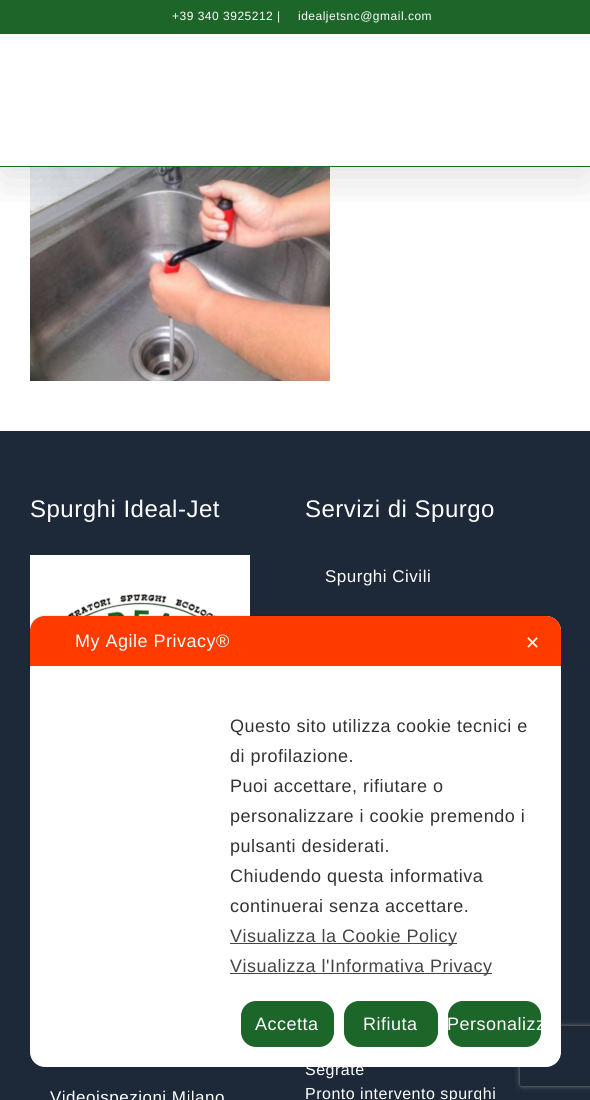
import math
import cairo

surface = cairo.ImageSurface(cairo.FORMAT_RGB24, 590, 1100)
ctx = cairo.Context(surface)
options = cairo.FontOptions()
options.set_hint_metrics(cairo.HINT_METRICS_OFF)
options.set_hint_style(cairo.HINT_STYLE_NONE)
ctx.set_font_options(options)
ctx.set_miter_limit(4)


def spaced_text(x, y, s, letter, word):
    ctx.move_to(x, y)
    for ch in s:
        ctx.show_text(ch)
        ctx.rel_move_to(letter + word * (ch == ' '), 0)


def round_rect(x, y, w, h, r):
    ctx.new_sub_path()
    for i, (u, v) in enumerate([(x + w - r, y + h - r), (x + r, y + h - r), (x + r, y + r), (x + w - r, y + r)]):
        ctx.arc(u, v, r, i * math.pi / 2, (i + 1) * math.pi / 2)
    ctx.close_path()


def shadow(x, y, w, h, r, blur, alpha):
    ctx.push_group_with_content(cairo.CONTENT_ALPHA)
    ctx.set_operator(cairo.OPERATOR_SOURCE)
    for i in range(15, -16, -2):
        e = blur * i / 6
        if min(w, h) + 2 * e > 0:
            ctx.set_source_rgba(0, 0, 0, alpha * math.erfc((i - 1) / 8.5) / 2)
            round_rect(x - e, y - e, w + 2 * e, h + 2 * e, max(0, min(r + e + blur * .6, min(w, h) / 2 + e)))
            ctx.fill()
    ctx.mask(ctx.pop_group())


def picture(path, x, y, w, h):
    ctx.save()
    ctx.set_source_surface(cairo.ImageSurface.create_from_png(path), x, y)
    ctx.rectangle(x, y, w, h)
    ctx.fill()
    ctx.restore()


ctx.set_source_rgb(1, 1, 1)
ctx.paint()
picture("img1.png", 30, 167, 300, 214)
ctx.save()
ctx.rectangle(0, 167, 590, 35)
ctx.clip()
ctx.set_source_rgb(0, 0, 0)
shadow(2, 12, 586, 163, 0, 25, 0.14)
ctx.restore()
ctx.set_source_rgb(0.114, 0.4, 0.161)
ctx.rectangle(0, 0, 590, 34)
ctx.fill()
ctx.select_font_face("Liberation Sans")
ctx.set_font_size(12)
ctx.set_source_rgb(1, 1, 1)
spaced_text(172, 20, "+39 340 3925212 |", 0.5, 0)
spaced_text(298, 20, "idealjetsnc@gmail.com", 0.5, 0)
ctx.set_source_rgb(0.114, 0.4, 0.161)
ctx.rectangle(0, 166, 590, 1)
ctx.fill()
ctx.set_source_rgb(0.114, 0.161, 0.224)
ctx.rectangle(0, 431, 590, 669)
ctx.fill()
ctx.set_font_size(24)
ctx.set_source_rgb(1, 1, 1)
spaced_text(30, 517, "Spurghi Ideal-Jet", 0.5, 0)
ctx.rectangle(30, 555, 220, 76)
ctx.fill()
picture("img2.png", 67, 594, 149, 22)
spaced_text(305, 517, "Servizi di Spurgo", 0.5, 0)
ctx.set_font_size(17)
spaced_text(325, 582, "Spurghi Civili", 0.5, 0)
spaced_text(50, 1103, "Videoispezioni Milano", 0.5, 0)
ctx.set_font_size(16)
spaced_text(305, 1075, "Segrate", 0.5, 0)
spaced_text(305, 1099, "Pronto intervento spurghi", 0.5, 0)
ctx.save()
ctx.set_fill_rule(cairo.FILL_RULE_EVEN_ODD)
ctx.new_path()
ctx.move_to(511, 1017)
ctx.line_to(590, 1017)
ctx.line_to(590, 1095)
ctx.line_to(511, 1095)
ctx.close_path()
ctx.move_to(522, 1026)
ctx.line_to(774, 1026)
ctx.curve_to(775, 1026, 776, 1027, 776, 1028)
ctx.line_to(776, 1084)
ctx.curve_to(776, 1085, 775, 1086, 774, 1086)
ctx.line_to(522, 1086)
ctx.curve_to(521, 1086, 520, 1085, 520, 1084)
ctx.line_to(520, 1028)
ctx.curve_to(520, 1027, 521, 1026, 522, 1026)
ctx.close_path()
ctx.clip()
ctx.set_source_rgb(0.502, 0.502, 0.502)
shadow(520, 1026, 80, 60, 2, 2.5, 1)
ctx.restore()
round_rect(29.5, 615.5, 532, 452, 15.5)
ctx.set_source_rgba(0, 0, 0, 0.08)
ctx.set_line_width(1)
ctx.stroke()
ctx.set_source_rgb(1, 1, 1)
round_rect(30, 616, 531, 451, 15)
ctx.fill()
ctx.set_source_rgb(1, 0.231, 0)
ctx.new_path()
ctx.move_to(45, 616)
ctx.line_to(546, 616)
ctx.curve_to(554.5, 616, 561, 622.5, 561, 631)
ctx.line_to(561, 666)
ctx.line_to(30, 666)
ctx.line_to(30, 631)
ctx.curve_to(30, 622.5, 36.5, 616, 45, 616)
ctx.close_path()
ctx.fill()
ctx.set_font_size(18)
ctx.set_source_rgb(1, 1, 1)
spaced_text(75, 647, "My Agile Privacy®", 0.5, 0)
ctx.select_font_face("DejaVu Sans")
spaced_text(525, 649, "✕", 0.5, 0)
ctx.select_font_face("Liberation Sans")
ctx.set_source_rgb(0.2, 0.2, 0.2)
spaced_text(230, 732, "Questo sito utilizza cookie tecnici e", 0.5, 0)
spaced_text(230, 762, "di profilazione.", 0.5, 0)
spaced_text(230, 792, "Puoi accettare, rifiutare o", 0.5, 0)
spaced_text(230, 822, "personalizzare i cookie premendo i", 0.5, 0)
spaced_text(230, 852, "pulsanti desiderati.", 0.5, 0)
spaced_text(230, 882, "Chiudendo questa informativa", 0.5, 0)
spaced_text(230, 912, "continuerai senza accettare.", 0.5, 0)
ctx.set_source_rgb(0.267, 0.267, 0.267)
ctx.rectangle(230, 943, 227, 1)
ctx.fill()
spaced_text(230, 942, "Visualizza la Cookie Policy", 0.5, 0)
ctx.rectangle(230, 973, 262, 1)
ctx.fill()
spaced_text(230, 972, "Visualizza l'Informativa Privacy", 0.5, 0)
ctx.set_source_rgb(0.11, 0.4, 0.161)
round_rect(241, 1001, 93, 46, 15)
ctx.fill()
ctx.set_source_rgb(1, 1, 1)
spaced_text(255, 1030, "Accetta", 0.5, 0)
ctx.set_source_rgb(0.11, 0.4, 0.161)
round_rect(344, 1001, 94, 46, 15)
ctx.fill()
ctx.set_source_rgb(1, 1, 1)
spaced_text(363, 1030, "Rifiuta", 0.5, 0)
ctx.set_source_rgb(0.11, 0.4, 0.161)
round_rect(448, 1001, 93, 46, 15)
ctx.fill()
ctx.set_source_rgb(1, 1, 1)
spaced_text(447, 1030, "Personalizz", 0.5, 0)
surface.write_to_png("page.png")
